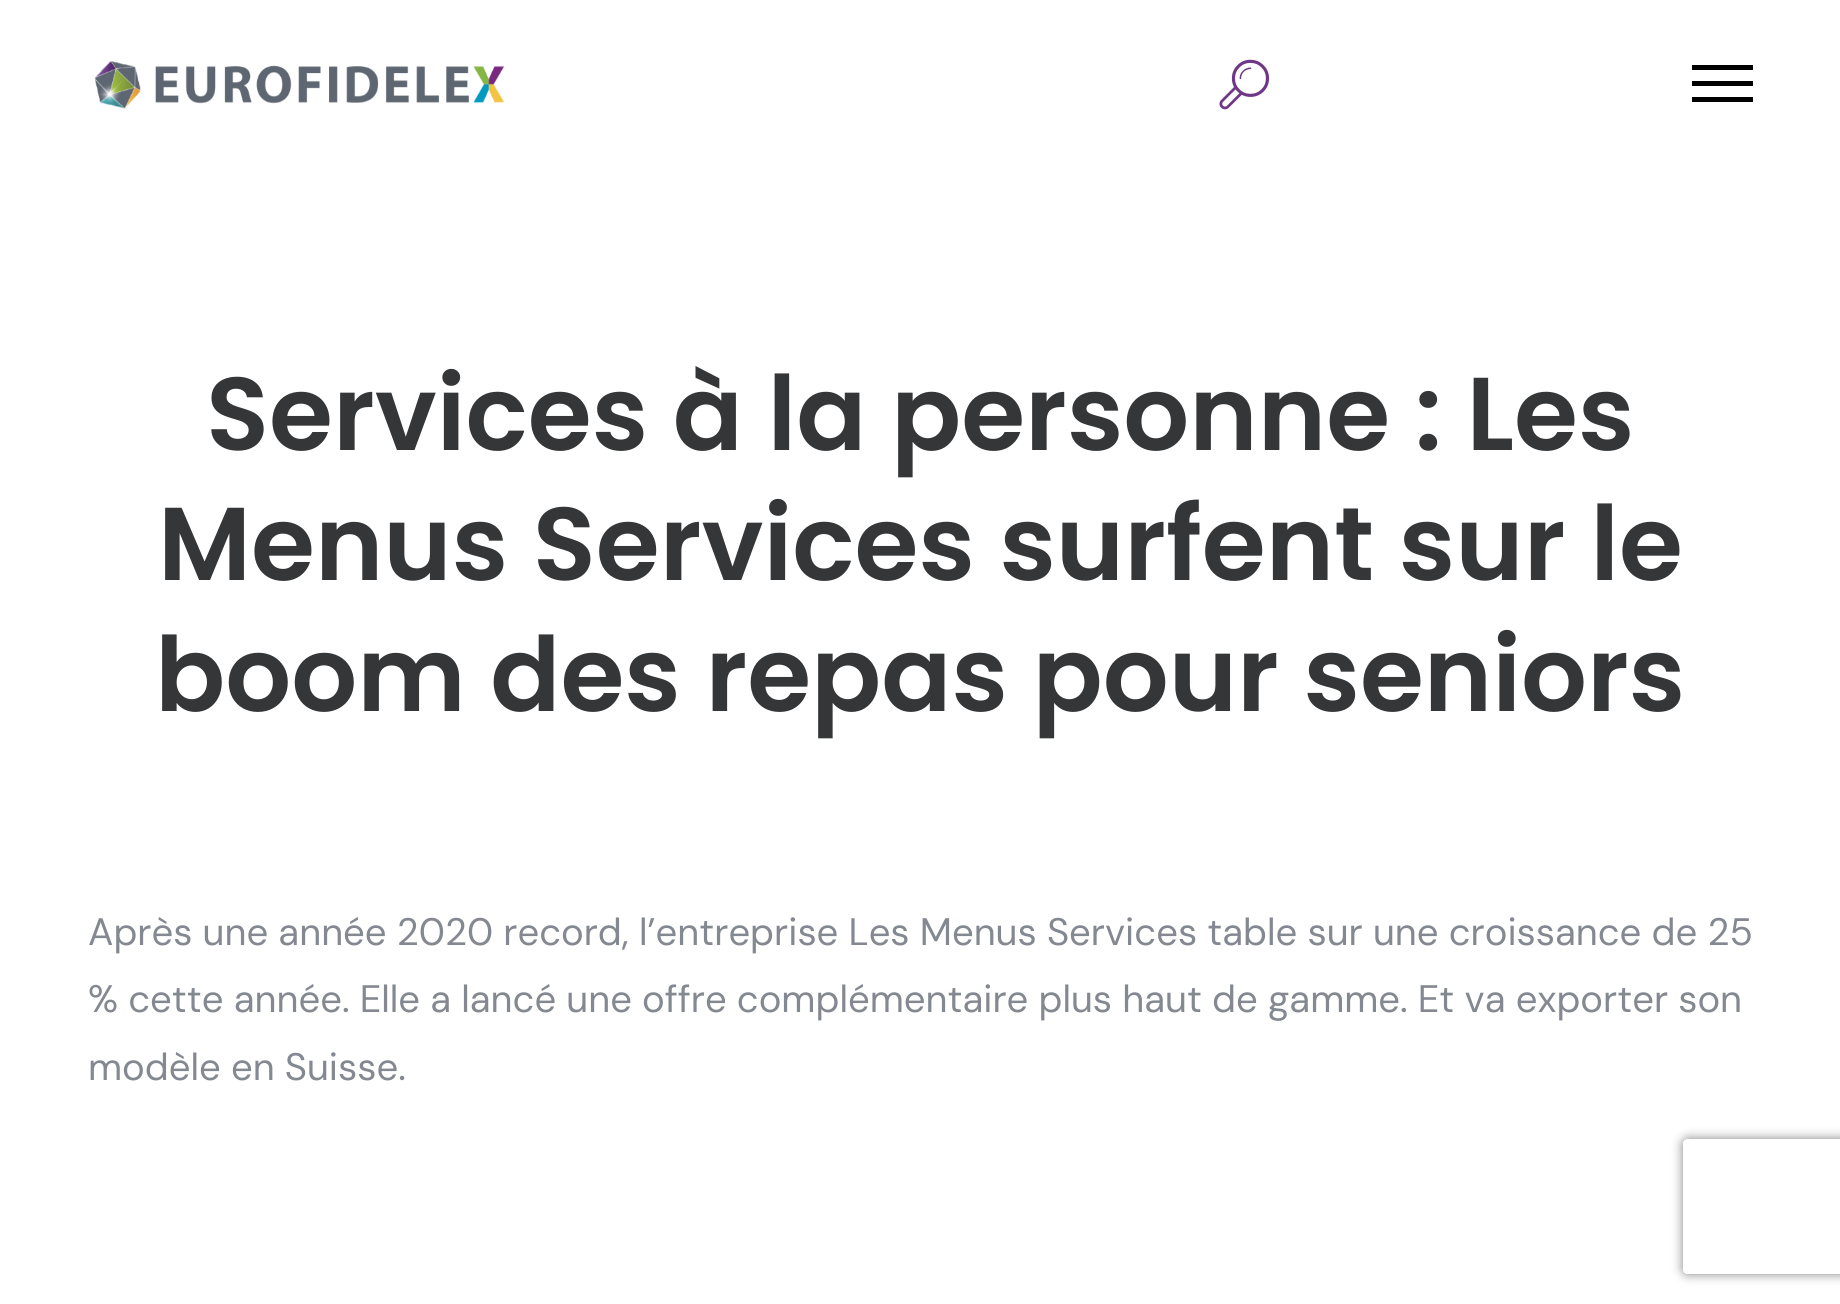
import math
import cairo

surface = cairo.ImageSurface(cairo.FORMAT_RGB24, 1840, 1304)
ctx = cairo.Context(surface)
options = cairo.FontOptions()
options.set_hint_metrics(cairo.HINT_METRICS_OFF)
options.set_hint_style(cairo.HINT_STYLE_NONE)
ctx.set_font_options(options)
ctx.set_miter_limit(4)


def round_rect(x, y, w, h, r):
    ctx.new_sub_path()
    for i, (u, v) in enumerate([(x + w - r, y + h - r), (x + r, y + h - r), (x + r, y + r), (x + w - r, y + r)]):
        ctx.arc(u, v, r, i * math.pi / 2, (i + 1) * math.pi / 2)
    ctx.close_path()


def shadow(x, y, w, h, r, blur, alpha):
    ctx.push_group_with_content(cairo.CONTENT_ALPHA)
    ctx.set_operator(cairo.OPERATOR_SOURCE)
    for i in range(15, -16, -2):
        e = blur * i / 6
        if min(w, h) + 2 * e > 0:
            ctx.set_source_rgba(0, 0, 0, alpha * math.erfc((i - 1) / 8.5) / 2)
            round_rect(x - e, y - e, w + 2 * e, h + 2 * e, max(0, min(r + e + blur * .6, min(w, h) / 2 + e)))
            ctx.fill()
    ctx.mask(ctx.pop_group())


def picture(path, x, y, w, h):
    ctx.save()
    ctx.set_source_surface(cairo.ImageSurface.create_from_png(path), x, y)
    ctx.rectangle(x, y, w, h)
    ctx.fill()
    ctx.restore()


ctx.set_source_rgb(1, 1, 1)
ctx.paint()
picture("img1.png", 94, 61, 410, 48)
picture("img2.png", 1219, 59, 51, 51)
ctx.set_source_rgb(0, 0, 0)
ctx.rectangle(1692, 65, 61, 5)
ctx.fill()
ctx.rectangle(1692, 81, 61, 5)
ctx.fill()
ctx.rectangle(1692, 97, 61, 5)
ctx.fill()
ctx.select_font_face("Poppins SemiBold")
ctx.set_font_size(103.5)
ctx.set_source_rgb(0.204, 0.212, 0.22)
ctx.move_to(206, 450)
ctx.show_text("Services à la personne : Les")
ctx.move_to(158, 580)
ctx.show_text("Menus Services surfent sur le")
ctx.move_to(155, 711)
ctx.show_text("boom des repas pour seniors")
ctx.select_font_face("DM Sans")
ctx.set_font_size(38.25)
ctx.set_source_rgb(0.518, 0.537, 0.569)
ctx.move_to(88, 945)
ctx.show_text("Après une année 2020 record, l’entreprise Les Menus Services table sur une croissance de 25")
ctx.move_to(88, 1012)
ctx.show_text("% cette année. Elle a lancé une offre complémentaire plus haut de gamme. Et va exporter son")
ctx.move_to(88, 1080)
ctx.show_text("modèle en Suisse.")
ctx.save()
ctx.set_fill_rule(cairo.FILL_RULE_EVEN_ODD)
ctx.new_path()
ctx.move_to(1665, 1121)
ctx.line_to(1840, 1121)
ctx.line_to(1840, 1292)
ctx.line_to(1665, 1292)
ctx.close_path()
ctx.move_to(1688, 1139)
ctx.line_to(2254, 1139)
ctx.curve_to(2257, 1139, 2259, 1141, 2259, 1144)
ctx.line_to(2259, 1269)
ctx.curve_to(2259, 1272, 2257, 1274, 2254, 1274)
ctx.line_to(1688, 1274)
ctx.curve_to(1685, 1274, 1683, 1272, 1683, 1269)
ctx.line_to(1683, 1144)
ctx.curve_to(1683, 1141, 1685, 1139, 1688, 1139)
ctx.close_path()
ctx.clip()
ctx.set_source_rgb(0.502, 0.502, 0.502)
shadow(1683, 1139, 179, 135, 5, 5.5, 1)
ctx.restore()
surface.write_to_png("page.png")
